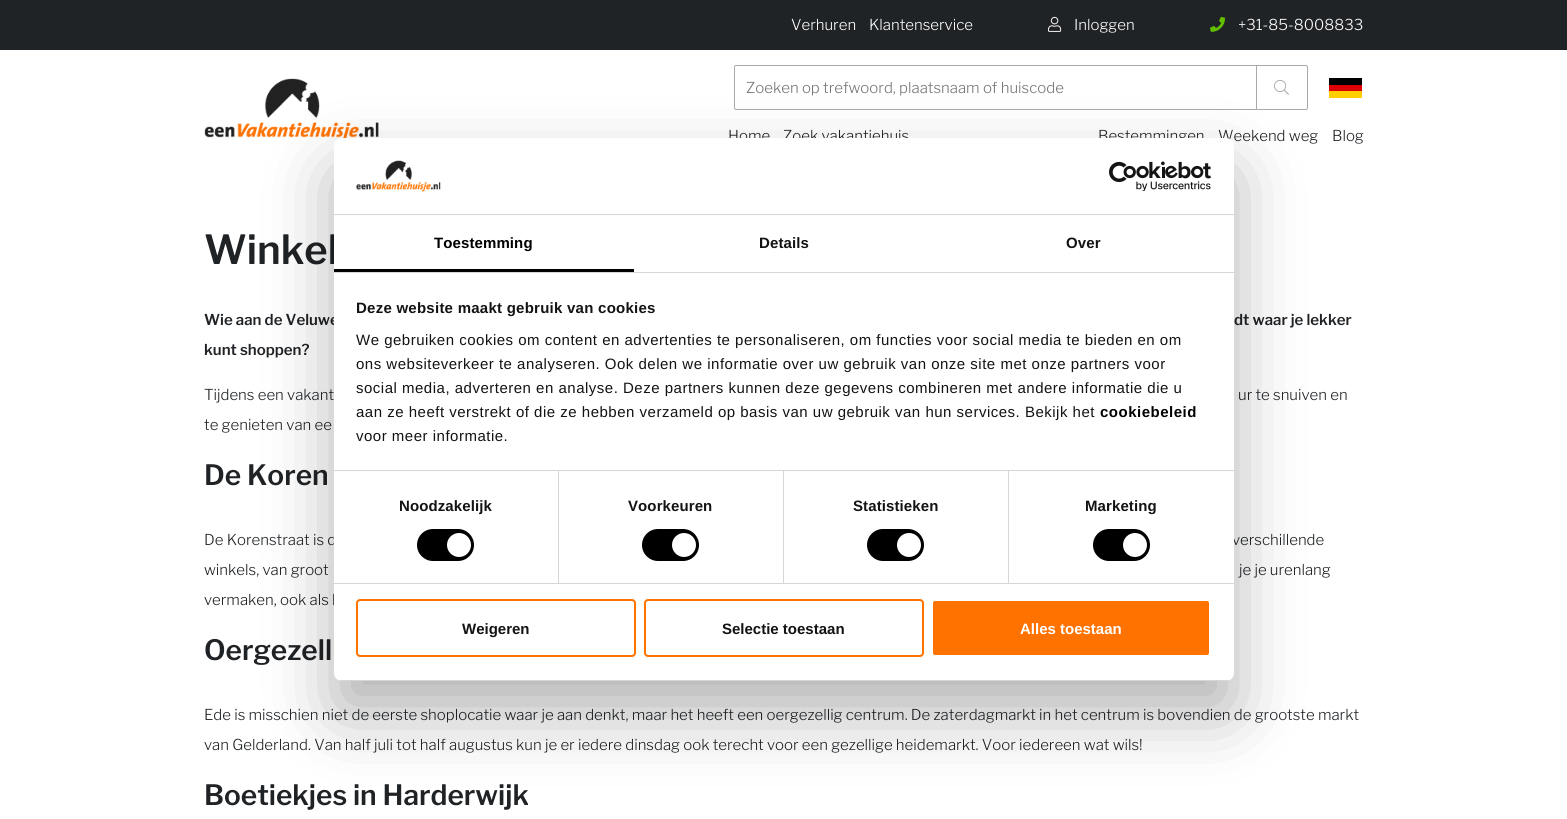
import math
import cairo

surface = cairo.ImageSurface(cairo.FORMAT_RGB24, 1567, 819)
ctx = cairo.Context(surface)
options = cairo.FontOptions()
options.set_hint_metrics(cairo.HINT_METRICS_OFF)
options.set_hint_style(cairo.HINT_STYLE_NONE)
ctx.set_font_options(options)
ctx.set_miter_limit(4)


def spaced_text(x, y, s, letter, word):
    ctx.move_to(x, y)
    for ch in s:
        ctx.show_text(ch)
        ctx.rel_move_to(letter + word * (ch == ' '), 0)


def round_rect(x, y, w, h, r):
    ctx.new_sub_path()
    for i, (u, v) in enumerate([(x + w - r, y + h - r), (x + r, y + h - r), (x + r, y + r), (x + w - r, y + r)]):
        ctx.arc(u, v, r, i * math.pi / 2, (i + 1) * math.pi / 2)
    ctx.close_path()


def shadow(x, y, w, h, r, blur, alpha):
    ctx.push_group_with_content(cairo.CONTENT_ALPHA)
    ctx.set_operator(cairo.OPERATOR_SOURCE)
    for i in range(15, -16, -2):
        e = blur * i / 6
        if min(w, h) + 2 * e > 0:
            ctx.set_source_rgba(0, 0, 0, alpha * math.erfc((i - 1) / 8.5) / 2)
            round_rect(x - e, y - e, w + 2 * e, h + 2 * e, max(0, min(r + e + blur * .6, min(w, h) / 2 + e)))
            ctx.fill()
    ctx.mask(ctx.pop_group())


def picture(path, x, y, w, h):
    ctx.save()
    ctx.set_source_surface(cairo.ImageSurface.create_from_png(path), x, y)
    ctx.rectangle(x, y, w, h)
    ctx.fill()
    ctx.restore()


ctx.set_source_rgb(1, 1, 1)
ctx.paint()
ctx.set_source_rgb(0.125, 0.137, 0.149)
ctx.rectangle(0, 0, 1567, 50)
ctx.fill()
ctx.select_font_face("Libre Franklin Light")
ctx.set_font_size(15)
ctx.set_source_rgb(1, 1, 1)
ctx.move_to(791, 30)
ctx.show_text("Verhuren")
ctx.move_to(869, 30)
ctx.show_text("Klantenservice")
picture("img1.png", 1048, 16, 14, 16)
ctx.move_to(1074, 30)
ctx.show_text("Inloggen")
picture("img2.png", 1210, 16, 15, 16)
ctx.move_to(1238, 30)
ctx.show_text("+31-85-8008833")
picture("img3.png", 204, 78, 175, 61)
round_rect(734.5, 65.5, 573, 44, 1.5)
ctx.set_source_rgb(0.667, 0.667, 0.667)
ctx.set_line_width(1)
ctx.stroke()
ctx.set_source_rgb(0.459, 0.459, 0.459)
ctx.move_to(746, 93)
ctx.show_text("Zoeken op trefwoord, plaatsnaam of huiscode")
ctx.set_source_rgb(0.667, 0.667, 0.667)
ctx.rectangle(1256, 66, 1, 43)
ctx.fill()
picture("img4.png", 1274, 79, 15, 16)
ctx.set_source_rgb(0, 0, 0)
ctx.rectangle(1329, 78, 33, 7)
ctx.fill()
ctx.set_source_rgb(0.867, 0, 0)
ctx.rectangle(1329, 85, 33, 6)
ctx.fill()
ctx.set_source_rgb(1, 0.808, 0)
ctx.rectangle(1329, 91, 33, 7)
ctx.fill()
ctx.set_source_rgb(0.125, 0.137, 0.149)
ctx.move_to(728, 141)
ctx.show_text("Home")
ctx.move_to(783, 141)
ctx.show_text("Zoek vakantiehuis")
ctx.move_to(1098, 141)
ctx.show_text("Bestemmingen")
ctx.move_to(1218, 141)
ctx.show_text("Weekend weg")
ctx.move_to(1332, 141)
ctx.show_text("Blog")
ctx.select_font_face("Libre Franklin SemiBold")
ctx.set_font_size(40)
ctx.move_to(204, 264)
ctx.show_text("Winkel")
ctx.set_font_size(15)
ctx.move_to(204, 325)
ctx.show_text("Wie aan de Veluwe")
ctx.move_to(1234, 325)
ctx.show_text("dt waar je lekker")
ctx.move_to(204, 355)
ctx.show_text("kunt shoppen?")
ctx.select_font_face("Libre Franklin Light")
ctx.move_to(204, 400)
ctx.show_text("Tijdens een vakant")
ctx.move_to(1238, 400)
ctx.show_text("ur te snuiven en")
ctx.move_to(204, 430)
ctx.show_text("te genieten van ee")
ctx.select_font_face("Libre Franklin SemiBold")
ctx.set_font_size(28)
ctx.move_to(204, 485)
ctx.show_text("De Koren")
ctx.select_font_face("Libre Franklin Light")
ctx.set_font_size(15)
ctx.move_to(204, 545)
ctx.show_text("De Korenstraat is d")
ctx.move_to(1232, 545)
ctx.show_text("verschillende")
ctx.move_to(204, 575)
ctx.show_text("winkels, van groot")
ctx.move_to(1239, 575)
ctx.show_text("je je urenlang")
ctx.move_to(204, 605)
ctx.show_text("vermaken, ook als h")
ctx.select_font_face("Libre Franklin SemiBold")
ctx.set_font_size(28)
ctx.move_to(204, 660)
ctx.show_text("Oergezell")
ctx.select_font_face("Libre Franklin Light")
ctx.set_font_size(15)
ctx.move_to(204, 720)
ctx.show_text("Ede is misschien niet de eerste shoplocatie waar je aan denkt, maar het heeft een oergezellig centrum. De zaterdagmarkt in het centrum is bovendien de grootste markt")
ctx.move_to(204, 750)
ctx.show_text("van Gelderland. Van half juli tot half augustus kun je er iedere dinsdag ook terecht voor een gezellige heidemarkt. Voor iedereen wat wils!")
ctx.select_font_face("Libre Franklin SemiBold")
ctx.set_font_size(28)
ctx.move_to(204, 805)
ctx.show_text("Boetiekjes in Harderwijk")
ctx.set_source_rgb(0, 0, 0)
shadow(334, 170, 900, 543, 8, 34, 0.3)
ctx.set_source_rgb(1, 1, 1)
round_rect(334, 138, 900, 543, 8)
ctx.fill()
ctx.set_source_rgb(0.839, 0.839, 0.839)
ctx.rectangle(334, 214, 900, 1)
ctx.fill()
picture("img5.png", 356, 160, 85, 32)
picture("img6.png", 1109, 161, 102, 30)
ctx.rectangle(334, 272, 900, 1)
ctx.fill()
ctx.set_source_rgb(0, 0, 0)
ctx.rectangle(334, 269, 300, 3)
ctx.fill()
ctx.select_font_face("Liberation Sans", cairo.FONT_SLANT_NORMAL, cairo.FONT_WEIGHT_BOLD)
ctx.set_font_size(15)
spaced_text(434, 248, "Toestemming", 0.1, 0)
ctx.set_source_rgb(0.078, 0.078, 0.078)
spaced_text(759, 248, "Details", 0.1, 0)
spaced_text(1066, 248, "Over", 0.1, 0)
ctx.set_source_rgb(0.839, 0.839, 0.839)
ctx.rectangle(334, 470, 900, 1)
ctx.fill()
ctx.set_source_rgb(0.078, 0.078, 0.078)
spaced_text(356, 313, "Deze website maakt gebruik van cookies", 0.25, 0)
ctx.select_font_face("Liberation Sans")
spaced_text(356, 345, "We gebruiken cookies om content en advertenties te personaliseren, om functies voor social media te bieden en om", 0.5, 0)
spaced_text(356, 369, "ons websiteverkeer te analyseren. Ook delen we informatie over uw gebruik van onze site met onze partners voor", 0.5, 0)
spaced_text(356, 393, "social media, adverteren en analyse. Deze partners kunnen deze gegevens combineren met andere informatie die u", 0.5, 0)
spaced_text(356, 417, "aan ze heeft verstrekt of die ze hebben verzameld op basis van uw gebruik van hun services. Bekijk het", 0.5, 0)
ctx.select_font_face("Liberation Sans", cairo.FONT_SLANT_NORMAL, cairo.FONT_WEIGHT_BOLD)
ctx.set_source_rgb(0, 0, 0)
spaced_text(1100, 417, "cookiebeleid", 0.5, 0)
ctx.select_font_face("Liberation Sans")
ctx.set_source_rgb(0.078, 0.078, 0.078)
spaced_text(356, 441, "voor meer informatie.", 0.5, 0)
ctx.set_source_rgb(0.839, 0.839, 0.839)
ctx.rectangle(334, 583, 900, 1)
ctx.fill()
ctx.rectangle(558, 471, 1, 112)
ctx.fill()
ctx.select_font_face("Liberation Sans", cairo.FONT_SLANT_NORMAL, cairo.FONT_WEIGHT_BOLD)
ctx.set_source_rgb(0.078, 0.078, 0.078)
spaced_text(399, 511, "Noodzakelijk", 0.1, 0)
ctx.set_source_rgb(0, 0, 0)
round_rect(417, 529, 57, 32, 16)
ctx.fill()
ctx.set_source_rgb(1, 1, 1)
ctx.arc(459, 545, 12, 0, 2 * math.pi)
ctx.fill()
ctx.set_source_rgb(0.839, 0.839, 0.839)
ctx.rectangle(783, 471, 1, 112)
ctx.fill()
ctx.set_source_rgb(0.078, 0.078, 0.078)
spaced_text(628, 511, "Voorkeuren", 0.1, 0)
ctx.set_source_rgb(0, 0, 0)
round_rect(642, 529, 57, 32, 16)
ctx.fill()
ctx.set_source_rgb(1, 1, 1)
ctx.arc(684, 545, 12, 0, 2 * math.pi)
ctx.fill()
ctx.set_source_rgb(0.839, 0.839, 0.839)
ctx.rectangle(1008, 471, 1, 112)
ctx.fill()
ctx.set_source_rgb(0.078, 0.078, 0.078)
spaced_text(853, 511, "Statistieken", 0.1, 0)
ctx.set_source_rgb(0, 0, 0)
round_rect(867, 529, 57, 32, 16)
ctx.fill()
ctx.set_source_rgb(1, 1, 1)
ctx.arc(909, 545, 12, 0, 2 * math.pi)
ctx.fill()
ctx.set_source_rgb(0.078, 0.078, 0.078)
spaced_text(1085, 511, "Marketing", 0.1, 0)
ctx.set_source_rgb(0, 0, 0)
round_rect(1093, 529, 57, 32, 16)
ctx.fill()
ctx.set_source_rgb(1, 1, 1)
ctx.arc(1135, 545, 12, 0, 2 * math.pi)
ctx.fill()
ctx.save()
round_rect(334, 138, 900, 543, 8)
ctx.clip()
ctx.set_source_rgb(0.839, 0.839, 0.839)
ctx.rectangle(334, 680, 900, 1)
ctx.fill()
ctx.restore()
round_rect(357, 600, 278, 56, 3)
ctx.set_source_rgb(1, 0.447, 0)
ctx.set_line_width(2)
ctx.stroke()
ctx.set_source_rgb(0.078, 0.078, 0.078)
ctx.move_to(462, 634)
ctx.show_text("Weigeren")
round_rect(645, 600, 278, 56, 3)
ctx.set_source_rgb(1, 0.447, 0)
ctx.stroke()
ctx.set_source_rgb(0.078, 0.078, 0.078)
ctx.move_to(722, 634)
ctx.show_text("Selectie toestaan")
ctx.set_source_rgb(1, 0.447, 0)
round_rect(932, 600, 278, 56, 3)
ctx.fill_preserve()
ctx.set_source_rgb(1, 1, 1)
ctx.stroke()
ctx.move_to(1020, 634)
ctx.show_text("Alles toestaan")
surface.write_to_png("page.png")
